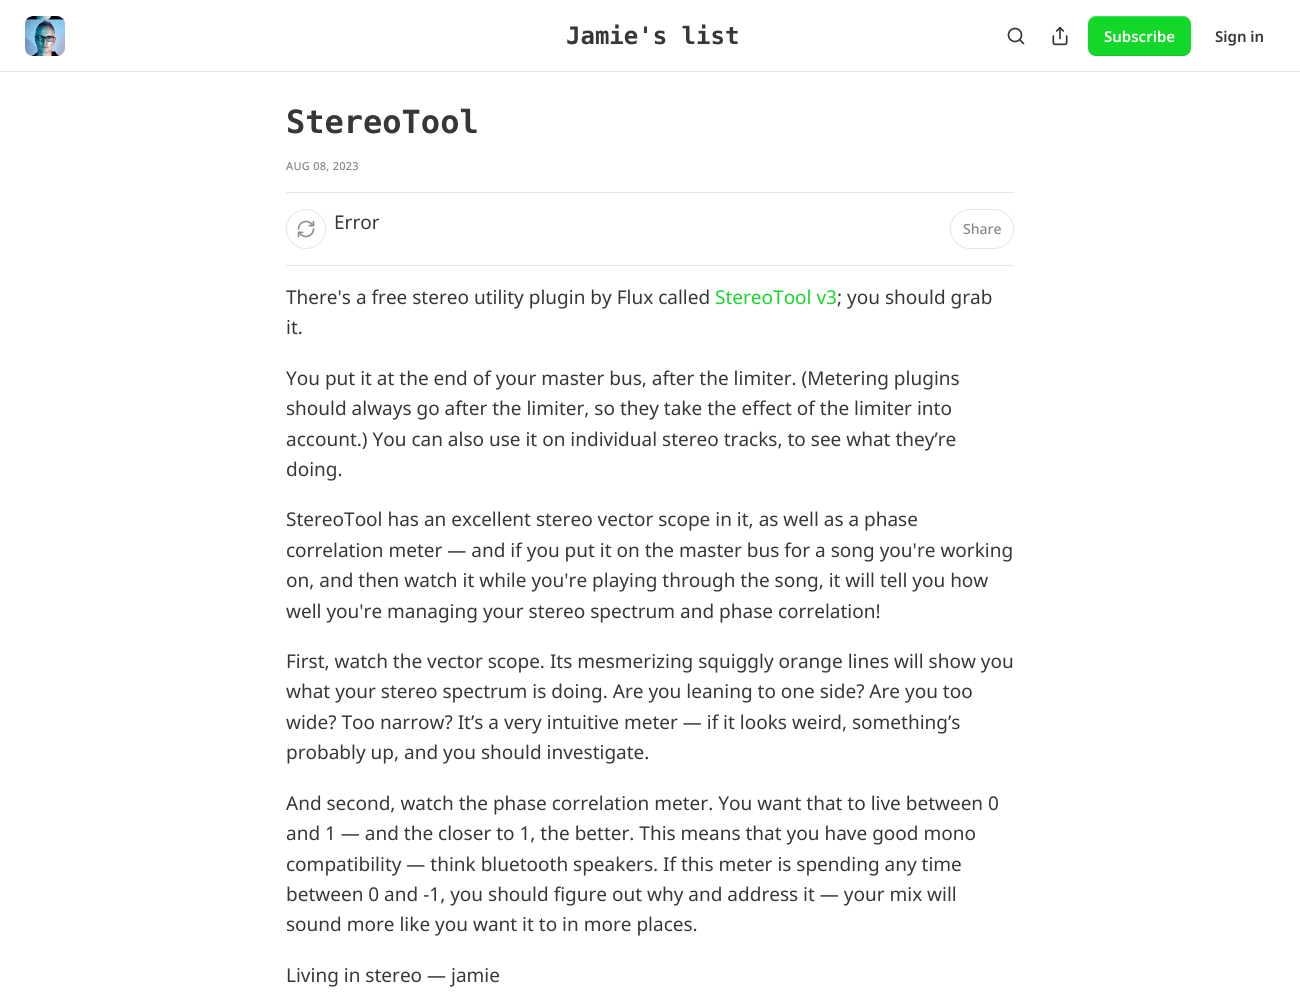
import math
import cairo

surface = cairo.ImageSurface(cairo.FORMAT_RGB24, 1300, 993)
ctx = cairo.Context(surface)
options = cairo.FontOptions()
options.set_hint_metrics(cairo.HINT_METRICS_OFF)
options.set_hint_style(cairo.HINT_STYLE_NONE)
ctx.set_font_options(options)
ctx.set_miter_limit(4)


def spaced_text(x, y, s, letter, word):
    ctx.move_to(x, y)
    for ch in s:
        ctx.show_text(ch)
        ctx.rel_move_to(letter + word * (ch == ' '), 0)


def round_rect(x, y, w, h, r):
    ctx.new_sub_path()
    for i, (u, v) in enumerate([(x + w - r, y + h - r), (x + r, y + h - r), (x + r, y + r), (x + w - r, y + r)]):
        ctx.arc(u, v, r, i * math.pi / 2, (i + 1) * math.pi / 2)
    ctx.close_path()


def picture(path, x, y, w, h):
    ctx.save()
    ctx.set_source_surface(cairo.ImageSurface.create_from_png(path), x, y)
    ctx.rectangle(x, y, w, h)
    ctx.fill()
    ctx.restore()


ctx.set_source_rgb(1, 1, 1)
ctx.paint()
ctx.set_source_rgb(0.902, 0.902, 0.902)
ctx.rectangle(0, 71, 1300, 1)
ctx.fill()
picture("img1.png", 25, 16, 40, 40)
ctx.select_font_face("DejaVu Sans Mono", cairo.FONT_SLANT_NORMAL, cairo.FONT_WEIGHT_BOLD)
ctx.set_font_size(24)
ctx.set_source_rgb(0.212, 0.216, 0.216)
ctx.move_to(566, 44)
ctx.show_text("Jamie's list")
ctx.new_path()
ctx.arc(1015, 35, 6.5, 0, 2 * math.pi)
ctx.set_line_width(1.7)
ctx.stroke()
ctx.new_path()
ctx.move_to(1023.5, 43.5)
ctx.line_to(1020, 40)
ctx.set_line_cap(cairo.LINE_CAP_ROUND)
ctx.set_line_join(cairo.LINE_JOIN_ROUND)
ctx.stroke()
picture("img2.png", 1052, 26, 16, 20)
ctx.set_source_rgb(0.075, 0.847, 0.165)
round_rect(1088, 16, 103, 40, 8)
ctx.fill()
ctx.set_source_rgba(0, 0, 0, 0.1)
ctx.new_path()
ctx.move_to(1088, 47)
ctx.curve_to(1088, 59, 1102, 56, 1110, 56)
ctx.line_to(1168, 56)
ctx.curve_to(1177, 56, 1191, 59, 1191, 47)
ctx.curve_to(1191, 51, 1187, 55, 1183, 55)
ctx.line_to(1096, 55)
ctx.curve_to(1092, 55, 1088, 51, 1088, 47)
ctx.close_path()
ctx.fill()
ctx.set_source_rgba(1, 1, 1, 0.2)
ctx.new_path()
ctx.move_to(1096, 17)
ctx.line_to(1183, 17)
ctx.curve_to(1187, 17, 1191, 21, 1191, 25)
ctx.curve_to(1191, 13, 1177, 16, 1168, 16)
ctx.line_to(1110, 16)
ctx.curve_to(1102, 16, 1088, 13, 1088, 25)
ctx.curve_to(1088, 21, 1092, 17, 1096, 17)
ctx.close_path()
ctx.fill()
ctx.select_font_face("Noto Sans SemiBold")
ctx.set_font_size(15)
ctx.set_source_rgb(1, 1, 1)
ctx.move_to(1104, 42)
ctx.show_text("Subscribe")
ctx.set_source_rgb(0.212, 0.216, 0.216)
ctx.move_to(1215, 42)
ctx.show_text("Sign in")
ctx.select_font_face("DejaVu Sans Mono", cairo.FONT_SLANT_NORMAL, cairo.FONT_WEIGHT_BOLD)
ctx.set_font_size(32)
ctx.move_to(286, 133)
ctx.show_text("StereoTool")
ctx.select_font_face("Noto Sans Medium")
ctx.set_font_size(11)
ctx.set_source_rgb(0.525, 0.529, 0.529)
spaced_text(286, 170, "AUG 08, 2023", 0.25, 0)
ctx.set_source_rgb(0.902, 0.902, 0.902)
ctx.rectangle(286, 192, 728, 1)
ctx.fill()
ctx.rectangle(286, 265, 728, 1)
ctx.fill()
ctx.arc(306, 229, 19.5, 0, 2 * math.pi)
ctx.set_line_width(1)
ctx.set_line_cap(cairo.LINE_CAP_BUTT)
ctx.set_line_join(cairo.LINE_JOIN_MITER)
ctx.stroke()
picture("img3.png", 297, 220, 18, 18)
ctx.select_font_face("Noto Sans")
ctx.set_font_size(19)
ctx.set_source_rgb(0.212, 0.216, 0.216)
ctx.move_to(334, 229)
ctx.show_text("Error")
round_rect(950.5, 209.5, 63, 39, 19.5)
ctx.set_source_rgb(0.902, 0.902, 0.902)
ctx.stroke()
ctx.select_font_face("Noto Sans Medium")
ctx.set_font_size(14)
ctx.set_source_rgb(0.525, 0.529, 0.529)
ctx.move_to(963, 234)
ctx.show_text("Share")
ctx.select_font_face("Noto Sans")
ctx.set_font_size(19)
ctx.set_source_rgb(0.212, 0.216, 0.216)
ctx.move_to(286, 304)
ctx.show_text("There's a free stereo utility plugin by Flux called")
ctx.set_source_rgb(0.075, 0.847, 0.165)
ctx.move_to(715, 304)
ctx.show_text("StereoTool v3")
ctx.set_source_rgb(0.212, 0.216, 0.216)
ctx.move_to(837, 304)
ctx.show_text("; you should grab")
ctx.move_to(286, 334)
ctx.show_text("it.")
ctx.move_to(286, 385)
ctx.show_text("You put it at the end of your master bus, after the limiter. (Metering plugins")
ctx.move_to(286, 415)
ctx.show_text("should always go after the limiter, so they take the effect of the limiter into")
ctx.move_to(286, 446)
ctx.show_text("account.) You can also use it on individual stereo tracks, to see what they’re")
ctx.move_to(286, 476)
ctx.show_text("doing.")
ctx.move_to(286, 526)
ctx.show_text("StereoTool has an excellent stereo vector scope in it, as well as a phase")
ctx.move_to(286, 557)
ctx.show_text("correlation meter — and if you put it on the master bus for a song you're working")
ctx.move_to(286, 587)
ctx.show_text("on, and then watch it while you're playing through the song, it will tell you how")
ctx.move_to(286, 618)
ctx.show_text("well you're managing your stereo spectrum and phase correlation!")
ctx.move_to(286, 668)
ctx.show_text("First, watch the vector scope. Its mesmerizing squiggly orange lines will show you")
ctx.move_to(286, 698)
ctx.show_text("what your stereo spectrum is doing. Are you leaning to one side? Are you too")
ctx.move_to(286, 729)
ctx.show_text("wide? Too narrow? It’s a very intuitive meter — if it looks weird, something’s")
ctx.move_to(286, 759)
ctx.show_text("probably up, and you should investigate.")
ctx.move_to(286, 810)
ctx.show_text("And second, watch the phase correlation meter. You want that to live between 0")
ctx.move_to(286, 840)
ctx.show_text("and 1 — and the closer to 1, the better. This means that you have good mono")
ctx.move_to(286, 871)
ctx.show_text("compatibility — think bluetooth speakers. If this meter is spending any time")
ctx.move_to(286, 901)
ctx.show_text("between 0 and -1, you should figure out why and address it — your mix will")
ctx.move_to(286, 931)
ctx.show_text("sound more like you want it to in more places.")
ctx.move_to(286, 982)
ctx.show_text("Living in stereo — jamie")
surface.write_to_png("page.png")
